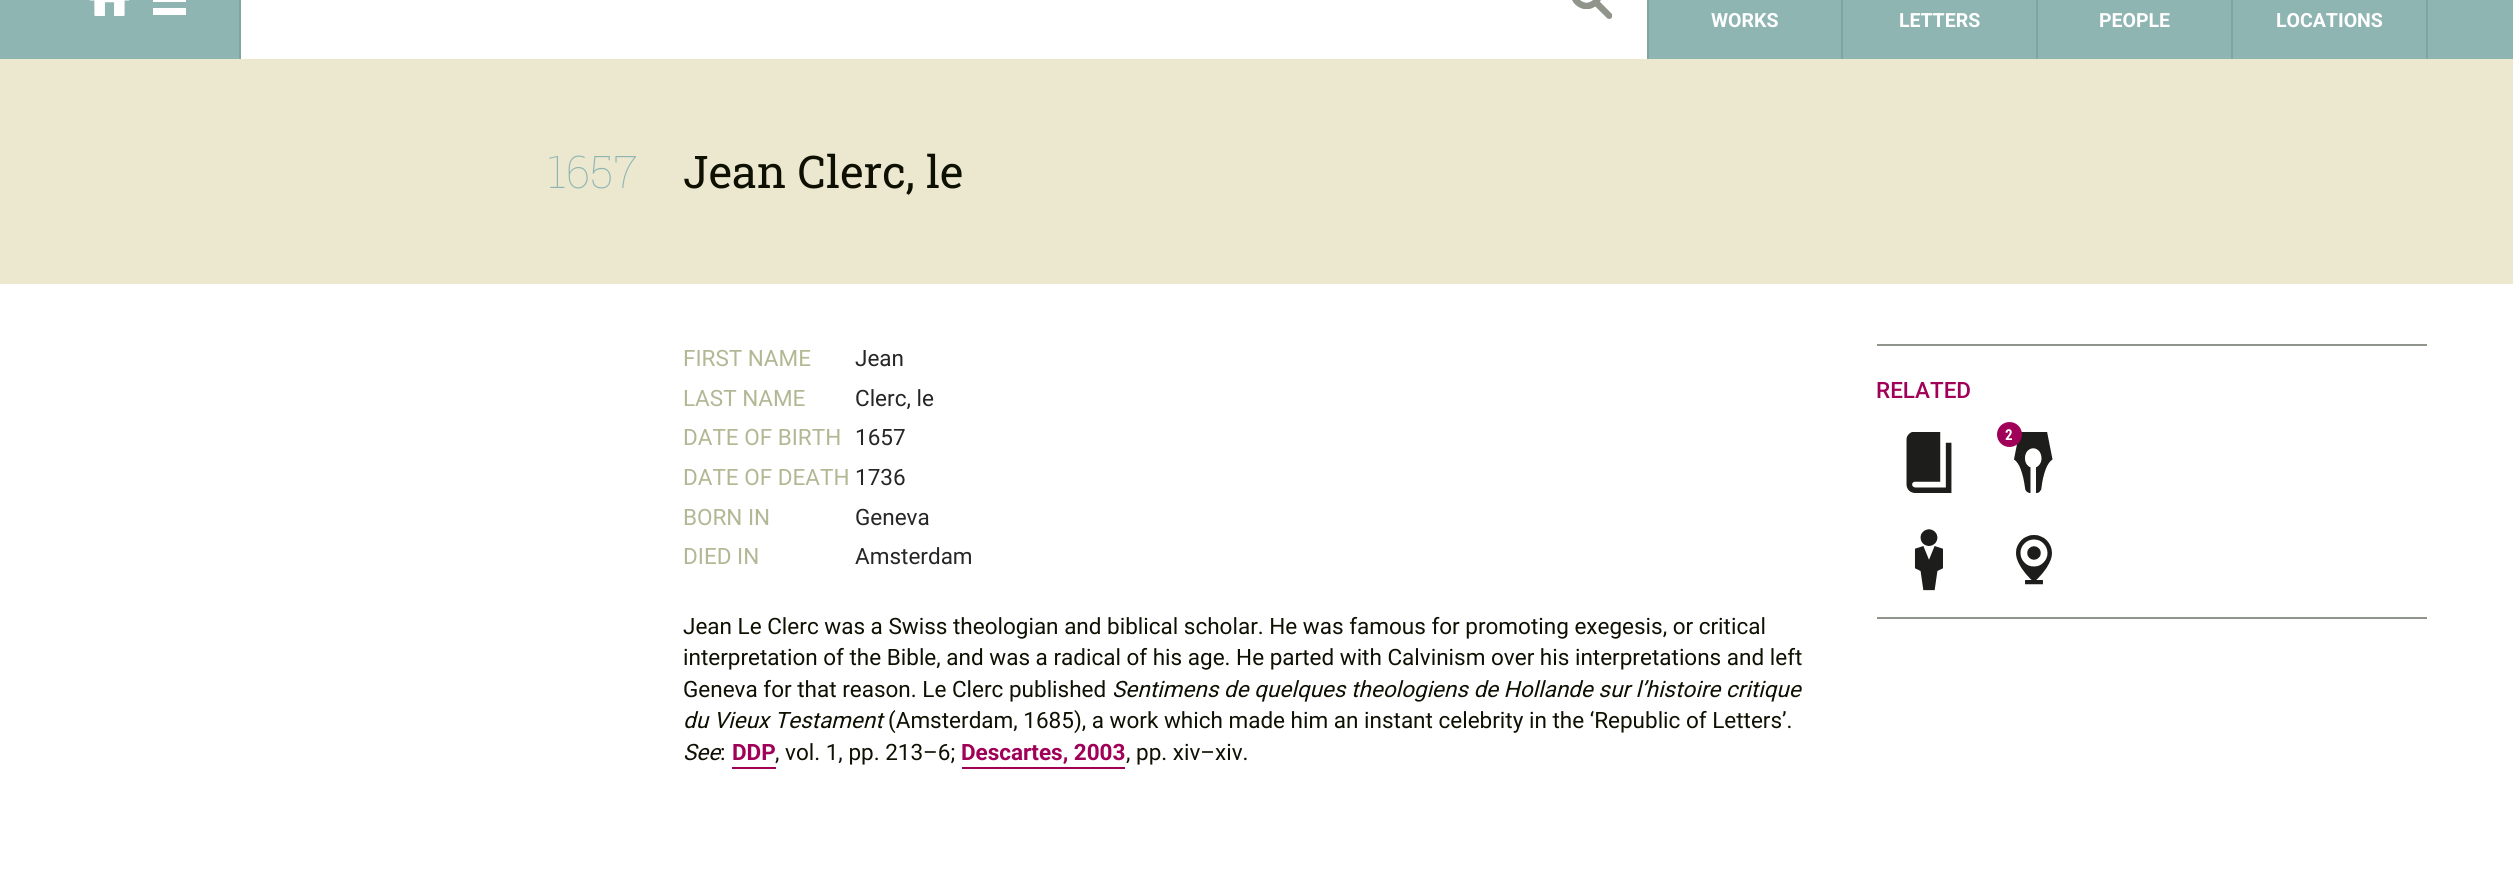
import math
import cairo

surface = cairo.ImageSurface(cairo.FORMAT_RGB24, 2513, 872)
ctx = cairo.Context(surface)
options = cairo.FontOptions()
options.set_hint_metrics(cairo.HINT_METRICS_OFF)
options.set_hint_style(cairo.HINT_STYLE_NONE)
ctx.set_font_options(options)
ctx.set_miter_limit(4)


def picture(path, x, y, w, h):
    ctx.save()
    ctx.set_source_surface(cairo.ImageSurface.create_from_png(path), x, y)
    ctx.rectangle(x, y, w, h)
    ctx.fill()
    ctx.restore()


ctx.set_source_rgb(1, 1, 1)
ctx.paint()
ctx.set_source_rgb(0.561, 0.71, 0.698)
ctx.rectangle(0, 0, 2513, 59)
ctx.fill()
picture("img1.png", 89, 0, 41, 16)
ctx.set_source_rgb(1, 1, 1)
ctx.rectangle(153, 0, 33, 2)
ctx.fill()
ctx.rectangle(153, 8, 33, 7)
ctx.fill()
ctx.rectangle(241, 0, 1406, 59)
ctx.fill()
ctx.set_source_rgb(0.51, 0.643, 0.627)
ctx.rectangle(1647, 0, 2, 59)
ctx.fill()
ctx.rectangle(239, 0, 2, 59)
ctx.fill()
picture("img2.png", 1572, 0, 41, 19)
ctx.rectangle(1841, 0, 2, 59)
ctx.fill()
ctx.select_font_face("Roboto", cairo.FONT_SLANT_NORMAL, cairo.FONT_WEIGHT_BOLD)
ctx.set_font_size(19.5)
ctx.set_source_rgb(1, 1, 1)
ctx.move_to(1711, 27)
ctx.show_text("WORKS")
ctx.set_source_rgb(0.51, 0.643, 0.627)
ctx.rectangle(2036, 0, 2, 59)
ctx.fill()
ctx.set_source_rgb(1, 1, 1)
ctx.move_to(1899, 27)
ctx.show_text("LETTERS")
ctx.set_source_rgb(0.51, 0.643, 0.627)
ctx.rectangle(2231, 0, 2, 59)
ctx.fill()
ctx.set_source_rgb(1, 1, 1)
ctx.move_to(2099, 27)
ctx.show_text("PEOPLE")
ctx.set_source_rgb(0.51, 0.643, 0.627)
ctx.rectangle(2426, 0, 2, 59)
ctx.fill()
ctx.set_source_rgb(1, 1, 1)
ctx.move_to(2276, 27)
ctx.show_text("LOCATIONS")
ctx.set_source_rgb(0.925, 0.91, 0.812)
ctx.rectangle(0, 59, 2513, 225)
ctx.fill()
ctx.select_font_face("Roboto Slab Thin")
ctx.set_font_size(45)
ctx.set_source_rgb(0.561, 0.71, 0.698)
ctx.move_to(548, 188)
ctx.show_text("1657")
ctx.select_font_face("Roboto Slab")
ctx.set_source_rgb(0.055, 0.063, 0.008)
ctx.move_to(683, 188)
ctx.show_text("Jean Clerc, le")
ctx.select_font_face("Roboto")
ctx.set_font_size(22.5)
ctx.set_source_rgb(0.698, 0.722, 0.58)
ctx.move_to(683, 366)
ctx.show_text("FIRST NAME")
ctx.set_source_rgb(0.149, 0.149, 0.149)
ctx.move_to(855, 366)
ctx.show_text("Jean")
ctx.set_source_rgb(0.698, 0.722, 0.58)
ctx.move_to(683, 406)
ctx.show_text("LAST NAME")
ctx.set_source_rgb(0.149, 0.149, 0.149)
ctx.move_to(855, 406)
ctx.show_text("Clerc, le")
ctx.set_source_rgb(0.698, 0.722, 0.58)
ctx.move_to(683, 445)
ctx.show_text("DATE OF BIRTH")
ctx.set_source_rgb(0.149, 0.149, 0.149)
ctx.move_to(855, 445)
ctx.show_text("1657")
ctx.set_source_rgb(0.698, 0.722, 0.58)
ctx.move_to(683, 485)
ctx.show_text("DATE OF DEATH")
ctx.set_source_rgb(0.149, 0.149, 0.149)
ctx.move_to(855, 485)
ctx.show_text("1736")
ctx.set_source_rgb(0.698, 0.722, 0.58)
ctx.move_to(683, 525)
ctx.show_text("BORN IN")
ctx.set_source_rgb(0.149, 0.149, 0.149)
ctx.move_to(855, 525)
ctx.show_text("Geneva")
ctx.set_source_rgb(0.698, 0.722, 0.58)
ctx.move_to(683, 564)
ctx.show_text("DIED IN")
ctx.set_source_rgb(0.149, 0.149, 0.149)
ctx.move_to(855, 564)
ctx.show_text("Amsterdam")
ctx.set_source_rgb(0.055, 0.063, 0.008)
ctx.move_to(683, 634)
ctx.show_text("Jean Le Clerc was a Swiss theologian and biblical scholar. He was famous for promoting exegesis, or critical")
ctx.move_to(683, 665)
ctx.show_text("interpretation of the Bible, and was a radical of his age. He parted with Calvinism over his interpretations and left")
ctx.move_to(683, 697)
ctx.show_text("Geneva for that reason. Le Clerc published")
ctx.select_font_face("Roboto", cairo.FONT_SLANT_ITALIC)
ctx.move_to(1112, 697)
ctx.show_text("Sentimens de quelques theologiens de Hollande sur l’histoire critique")
ctx.move_to(683, 728)
ctx.show_text("du Vieux Testament")
ctx.select_font_face("Roboto")
ctx.move_to(888, 728)
ctx.show_text("(Amsterdam, 1685), a work which made him an instant celebrity in the ‘Republic of Letters’.")
ctx.select_font_face("Roboto", cairo.FONT_SLANT_ITALIC)
ctx.move_to(683, 760)
ctx.show_text("See")
ctx.select_font_face("Roboto")
ctx.move_to(720, 760)
ctx.show_text(":")
ctx.select_font_face("Roboto", cairo.FONT_SLANT_NORMAL, cairo.FONT_WEIGHT_BOLD)
ctx.set_source_rgb(0.627, 0, 0.341)
ctx.move_to(732, 760)
ctx.show_text("DDP")
ctx.rectangle(732, 767, 44, 2)
ctx.fill()
ctx.select_font_face("Roboto")
ctx.set_source_rgb(0.055, 0.063, 0.008)
ctx.move_to(775, 760)
ctx.show_text(", vol. 1, pp. 213–6;")
ctx.select_font_face("Roboto", cairo.FONT_SLANT_NORMAL, cairo.FONT_WEIGHT_BOLD)
ctx.set_source_rgb(0.627, 0, 0.341)
ctx.move_to(961, 760)
ctx.show_text("Descartes, 2003")
ctx.rectangle(962, 767, 163, 2)
ctx.fill()
ctx.select_font_face("Roboto")
ctx.set_source_rgb(0.055, 0.063, 0.008)
ctx.move_to(1126, 760)
ctx.show_text(", pp. xiv–xiv.")
ctx.set_source_rgb(0.561, 0.584, 0.545)
ctx.rectangle(1877, 344, 550, 2)
ctx.fill()
ctx.rectangle(1877, 617, 550, 2)
ctx.fill()
ctx.select_font_face("Roboto Medium")
ctx.set_source_rgb(0.627, 0, 0.341)
ctx.move_to(1876, 398)
ctx.show_text("RELATED")
picture("img3.png", 1906, 432, 46, 61)
picture("img4.png", 2014, 432, 39, 61)
ctx.arc(2009.5, 434.5, 12.5, 0, 2 * math.pi)
ctx.fill()
ctx.select_font_face("Roboto Condensed", cairo.FONT_SLANT_NORMAL, cairo.FONT_WEIGHT_BOLD)
ctx.set_font_size(15)
ctx.set_source_rgb(1, 1, 1)
ctx.move_to(2005, 440)
ctx.show_text("2")
picture("img5.png", 1914, 529, 30, 62)
picture("img6.png", 2016, 535, 36, 50)
surface.write_to_png("page.png")
